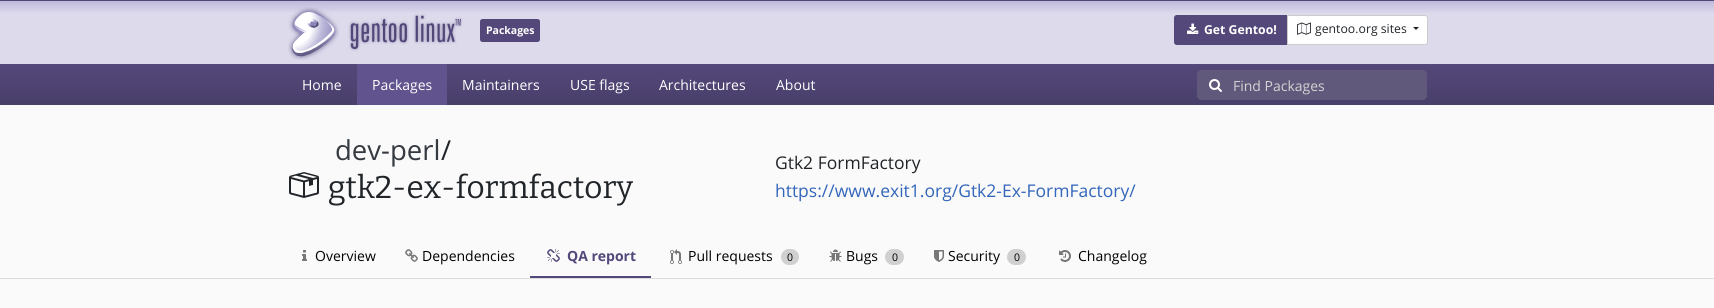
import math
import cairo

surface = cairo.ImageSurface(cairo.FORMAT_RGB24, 1714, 308)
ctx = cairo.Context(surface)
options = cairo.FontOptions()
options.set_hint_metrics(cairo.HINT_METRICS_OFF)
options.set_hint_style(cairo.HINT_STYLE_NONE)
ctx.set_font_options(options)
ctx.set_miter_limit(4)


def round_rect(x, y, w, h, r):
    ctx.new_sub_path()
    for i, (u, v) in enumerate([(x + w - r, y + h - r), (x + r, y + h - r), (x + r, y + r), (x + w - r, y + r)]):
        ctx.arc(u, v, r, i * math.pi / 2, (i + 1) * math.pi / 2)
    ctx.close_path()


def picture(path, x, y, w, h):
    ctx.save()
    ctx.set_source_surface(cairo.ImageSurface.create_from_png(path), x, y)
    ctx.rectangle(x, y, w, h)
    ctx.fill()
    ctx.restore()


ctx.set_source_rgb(0.98, 0.98, 0.98)
ctx.paint()
ctx.set_source_rgb(0.329, 0.282, 0.478)
ctx.rectangle(0, 0, 1714, 1)
ctx.fill()
gradient = cairo.LinearGradient(857, 1, 857, 64)
gradient.add_color_stop_rgba(0, 0.745, 0.722, 0.859, 1)
gradient.add_color_stop_rgba(0.2, 0.867, 0.855, 0.925, 1)
ctx.set_source(gradient)
ctx.rectangle(0, 1, 1714, 63)
ctx.fill()
picture("img1.png", 288, 7, 175, 53)
ctx.set_source_rgb(0.329, 0.282, 0.478)
round_rect(480, 19, 60, 23, 2.5)
ctx.fill()
ctx.select_font_face("Open Sans", cairo.FONT_SLANT_NORMAL, cairo.FONT_WEIGHT_BOLD)
ctx.set_font_size(10.5)
ctx.set_source_rgb(1, 1, 1)
ctx.move_to(486, 34)
ctx.show_text("Packages")
ctx.set_source_rgb(0.329, 0.282, 0.478)
ctx.new_path()
ctx.move_to(1177, 15.5)
ctx.line_to(1287.5, 15.5)
ctx.line_to(1287.5, 44.5)
ctx.line_to(1177, 44.5)
ctx.curve_to(1175.5, 44.5, 1174.5, 43.5, 1174.5, 42)
ctx.line_to(1174.5, 18)
ctx.curve_to(1174.5, 16.5, 1175.5, 15.5, 1177, 15.5)
ctx.close_path()
ctx.fill_preserve()
ctx.set_line_width(1)
ctx.stroke()
picture("img2.png", 1187, 23, 12, 11)
ctx.set_font_size(12.25)
ctx.set_source_rgb(1, 1, 1)
ctx.move_to(1204, 34)
ctx.show_text("Get Gentoo!")
ctx.new_path()
ctx.move_to(1287.5, 15.5)
ctx.line_to(1425, 15.5)
ctx.curve_to(1426.5, 15.5, 1427.5, 16.5, 1427.5, 18)
ctx.line_to(1427.5, 42)
ctx.curve_to(1427.5, 43.5, 1426.5, 44.5, 1425, 44.5)
ctx.line_to(1287.5, 44.5)
ctx.close_path()
ctx.fill_preserve()
ctx.set_source_rgb(0.8, 0.8, 0.8)
ctx.stroke()
picture("img3.png", 1297, 22, 14, 13)
ctx.select_font_face("Open Sans")
ctx.set_source_rgb(0.129, 0.145, 0.161)
ctx.move_to(1315, 33)
ctx.show_text("gentoo.org sites")
ctx.new_path()
ctx.move_to(1413, 27)
ctx.line_to(1419, 27)
ctx.line_to(1416, 30)
ctx.close_path()
ctx.fill()
gradient = cairo.LinearGradient(857, 64, 857, 105)
gradient.add_color_stop_rgba(0, 0.329, 0.282, 0.478, 1)
gradient.add_color_stop_rgba(1, 0.286, 0.247, 0.416, 1)
ctx.set_source(gradient)
ctx.rectangle(0, 64, 1714, 41)
ctx.fill()
ctx.set_font_size(14)
ctx.set_source_rgb(1, 1, 1)
ctx.move_to(302, 90)
ctx.show_text("Home")
ctx.set_source_rgb(0.38, 0.325, 0.553)
ctx.rectangle(357, 64, 90, 41)
ctx.fill()
ctx.set_source_rgb(1, 1, 1)
ctx.move_to(372, 90)
ctx.show_text("Packages")
ctx.move_to(462, 90)
ctx.show_text("Maintainers")
ctx.move_to(570, 90)
ctx.show_text("USE flags")
ctx.move_to(659, 90)
ctx.show_text("Architectures")
ctx.move_to(776, 90)
ctx.show_text("About")
ctx.set_source_rgb(0.38, 0.349, 0.482)
ctx.new_path()
ctx.move_to(1201, 70)
ctx.line_to(1234, 70)
ctx.line_to(1234, 100)
ctx.line_to(1201, 100)
ctx.curve_to(1199, 100, 1197, 98, 1197, 96)
ctx.line_to(1197, 74)
ctx.curve_to(1197, 72, 1199, 70, 1201, 70)
ctx.close_path()
ctx.fill()
picture("img4.png", 1209, 79, 13, 13)
ctx.new_path()
ctx.move_to(1233, 70)
ctx.line_to(1423, 70)
ctx.curve_to(1425, 70, 1427, 72, 1427, 74)
ctx.line_to(1427, 96)
ctx.curve_to(1427, 98, 1425, 100, 1423, 100)
ctx.line_to(1233, 100)
ctx.close_path()
ctx.fill()
ctx.set_source_rgb(0.827, 0.827, 0.827)
ctx.move_to(1233, 91)
ctx.show_text("Find Packages")
ctx.set_font_size(27.5)
ctx.set_source_rgb(0.204, 0.227, 0.251)
ctx.move_to(335, 160)
ctx.show_text("dev-perl")
ctx.set_source_rgb(0.129, 0.145, 0.161)
ctx.move_to(441, 160)
ctx.show_text("/")
picture("img5.png", 289, 172, 30, 26)
ctx.select_font_face("Bitter")
ctx.set_font_size(31.5)
ctx.move_to(328, 198)
ctx.show_text("gtk2-ex-formfactory")
ctx.select_font_face("Open Sans")
ctx.set_font_size(17.5)
ctx.move_to(775, 169)
ctx.show_text("Gtk2 FormFactory")
ctx.set_source_rgb(0.2, 0.4, 0.733)
ctx.move_to(775, 197)
ctx.show_text("https://www.exit1.org/Gtk2-Ex-FormFactory/")
picture("img6.png", 302, 250, 5, 11)
ctx.set_font_size(14)
ctx.set_source_rgb(0, 0, 0)
ctx.move_to(315, 261)
ctx.show_text("Overview")
picture("img7.png", 405, 249, 13, 13)
ctx.move_to(422, 261)
ctx.show_text("Dependencies")
ctx.set_source_rgb(0.329, 0.282, 0.478)
ctx.rectangle(530, 276, 121, 2)
ctx.fill()
picture("img8.png", 547, 249, 13, 13)
ctx.select_font_face("Open Sans", cairo.FONT_SLANT_NORMAL, cairo.FONT_WEIGHT_BOLD)
ctx.move_to(567, 261)
ctx.show_text("QA report")
picture("img9.png", 670, 249, 12, 15)
ctx.select_font_face("Open Sans")
ctx.set_source_rgb(0, 0, 0)
ctx.move_to(688, 261)
ctx.show_text("Pull requests")
ctx.set_source_rgb(0.816, 0.816, 0.816)
round_rect(781, 249, 18, 16, 8)
ctx.fill()
ctx.set_font_size(10.5)
ctx.set_source_rgb(0, 0, 0)
ctx.move_to(787, 261)
ctx.show_text("0")
picture("img10.png", 829, 249, 13, 13)
ctx.set_font_size(14)
ctx.move_to(846, 261)
ctx.show_text("Bugs")
ctx.set_source_rgb(0.816, 0.816, 0.816)
round_rect(885, 249, 19, 16, 8)
ctx.fill()
ctx.set_font_size(10.5)
ctx.set_source_rgb(0, 0, 0)
ctx.move_to(892, 261)
ctx.show_text("0")
picture("img11.png", 934, 250, 10, 12)
ctx.set_font_size(14)
ctx.move_to(948, 261)
ctx.show_text("Security")
ctx.set_source_rgb(0.816, 0.816, 0.816)
round_rect(1007, 249, 19, 16, 8)
ctx.fill()
ctx.set_font_size(10.5)
ctx.set_source_rgb(0, 0, 0)
ctx.move_to(1014, 261)
ctx.show_text("0")
picture("img12.png", 1059, 250, 12, 12)
ctx.set_font_size(14)
ctx.move_to(1078, 261)
ctx.show_text("Changelog")
ctx.set_source_rgb(0.867, 0.867, 0.867)
ctx.rectangle(0, 278, 1714, 1)
ctx.fill()
surface.write_to_png("page.png")
